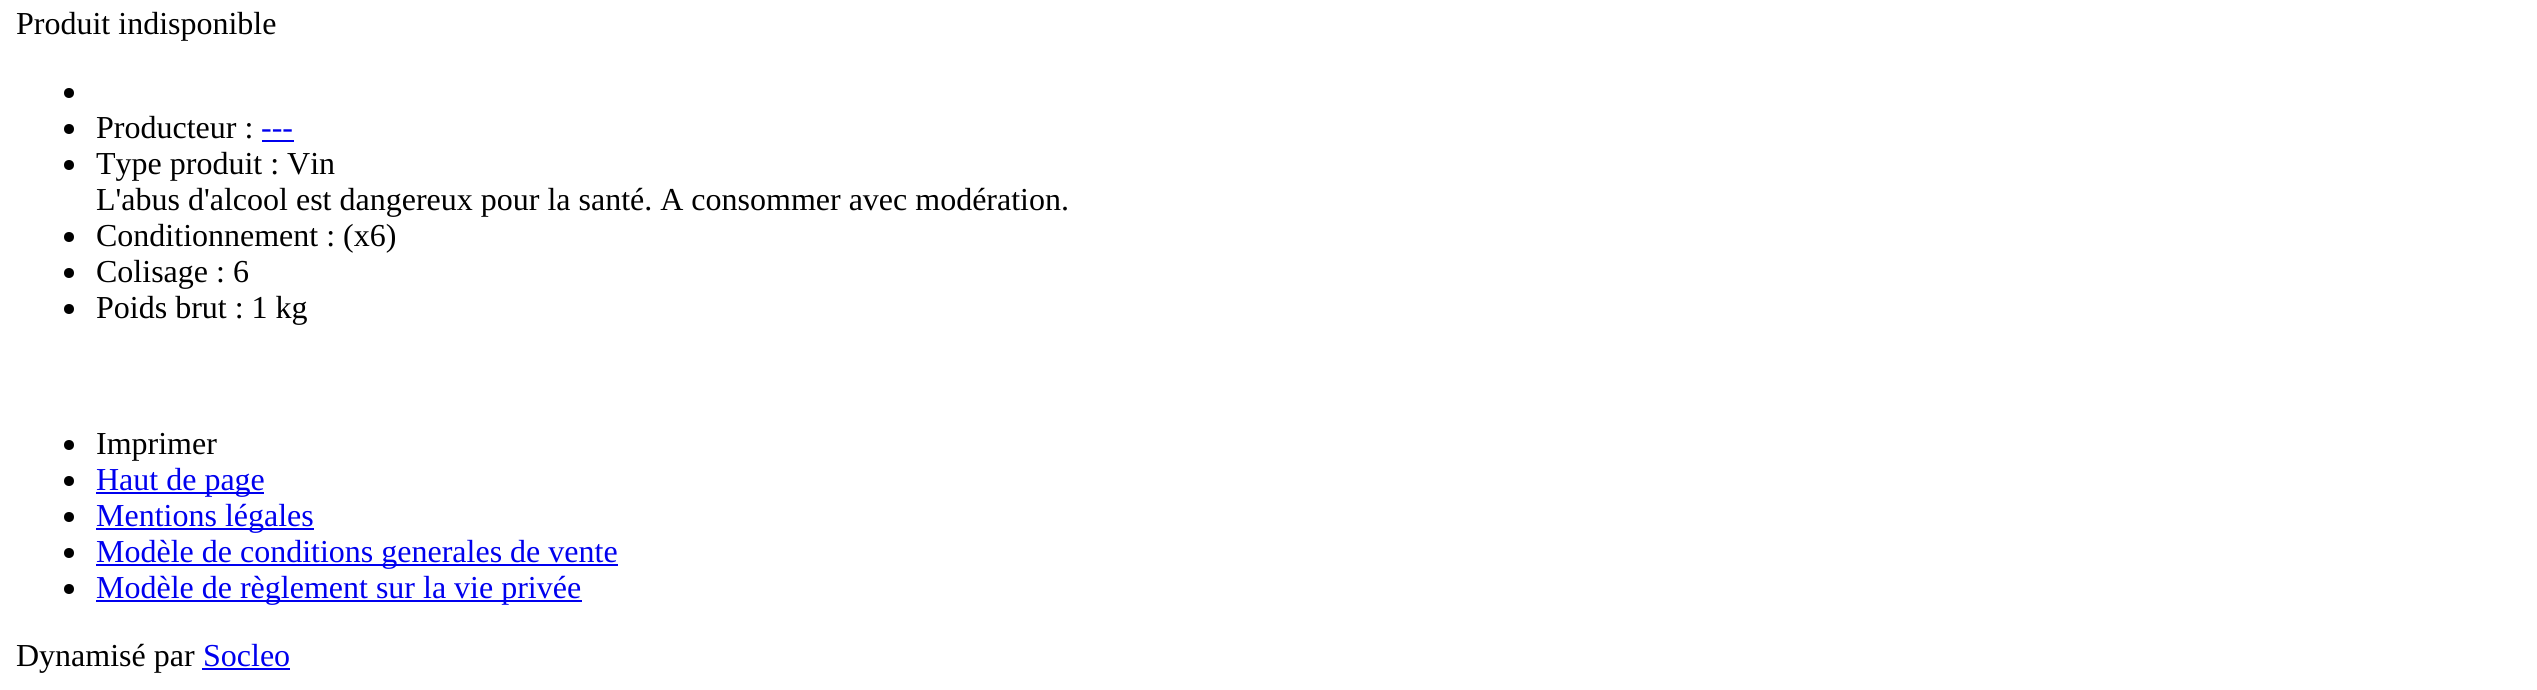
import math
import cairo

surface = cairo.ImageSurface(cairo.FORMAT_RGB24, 2537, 690)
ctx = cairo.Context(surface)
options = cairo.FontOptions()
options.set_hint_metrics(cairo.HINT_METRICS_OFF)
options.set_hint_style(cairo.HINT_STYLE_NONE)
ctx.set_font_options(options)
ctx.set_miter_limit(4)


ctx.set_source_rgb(1, 1, 1)
ctx.paint()
ctx.select_font_face("Liberation Serif")
ctx.set_font_size(32)
ctx.set_source_rgb(0, 0, 0)
ctx.move_to(16, 34)
ctx.show_text("Produit indisponible")
ctx.new_path()
ctx.arc(69, 93, 5, 0, 2 * math.pi)
ctx.fill()
ctx.arc(69, 129, 5, 0, 2 * math.pi)
ctx.fill()
ctx.move_to(96, 138)
ctx.show_text("Producteur :")
ctx.set_source_rgb(0, 0, 0.933)
ctx.move_to(261, 138)
ctx.show_text("---")
ctx.rectangle(262, 140, 32, 2)
ctx.fill()
ctx.set_source_rgb(0, 0, 0)
ctx.arc(69, 165, 5, 0, 2 * math.pi)
ctx.fill()
ctx.move_to(96, 174)
ctx.show_text("Type produit : Vin")
ctx.move_to(96, 210)
ctx.show_text("L'abus d'alcool est dangereux pour la santé. A consommer avec modération.")
ctx.new_path()
ctx.arc(69, 237, 5, 0, 2 * math.pi)
ctx.fill()
ctx.move_to(96, 246)
ctx.show_text("Conditionnement : (x6)")
ctx.new_path()
ctx.arc(69, 273, 5, 0, 2 * math.pi)
ctx.fill()
ctx.move_to(96, 282)
ctx.show_text("Colisage : 6")
ctx.new_path()
ctx.arc(69, 309, 5, 0, 2 * math.pi)
ctx.fill()
ctx.move_to(96, 318)
ctx.show_text("Poids brut : 1 kg")
ctx.new_path()
ctx.arc(69, 445, 5, 0, 2 * math.pi)
ctx.fill()
ctx.move_to(96, 454)
ctx.show_text("Imprimer")
ctx.new_path()
ctx.arc(69, 481, 5, 0, 2 * math.pi)
ctx.fill()
ctx.set_source_rgb(0, 0, 0.933)
ctx.rectangle(96, 492, 168, 2)
ctx.fill()
ctx.move_to(96, 490)
ctx.show_text("Haut de page")
ctx.set_source_rgb(0, 0, 0)
ctx.new_path()
ctx.arc(69, 517, 5, 0, 2 * math.pi)
ctx.fill()
ctx.set_source_rgb(0, 0, 0.933)
ctx.rectangle(96, 528, 218, 2)
ctx.fill()
ctx.move_to(96, 526)
ctx.show_text("Mentions légales")
ctx.set_source_rgb(0, 0, 0)
ctx.new_path()
ctx.arc(69, 553, 5, 0, 2 * math.pi)
ctx.fill()
ctx.set_source_rgb(0, 0, 0.933)
ctx.rectangle(96, 564, 522, 2)
ctx.fill()
ctx.move_to(96, 562)
ctx.show_text("Modèle de conditions generales de vente")
ctx.set_source_rgb(0, 0, 0)
ctx.new_path()
ctx.arc(69, 589, 5, 0, 2 * math.pi)
ctx.fill()
ctx.set_source_rgb(0, 0, 0.933)
ctx.rectangle(96, 600, 486, 2)
ctx.fill()
ctx.move_to(96, 598)
ctx.show_text("Modèle de règlement sur la vie privée")
ctx.set_source_rgb(0, 0, 0)
ctx.move_to(16, 666)
ctx.show_text("Dynamisé par")
ctx.set_source_rgb(0, 0, 0.933)
ctx.move_to(203, 666)
ctx.show_text("Socleo")
ctx.rectangle(202, 668, 88, 2)
ctx.fill()
surface.write_to_png("page.png")
